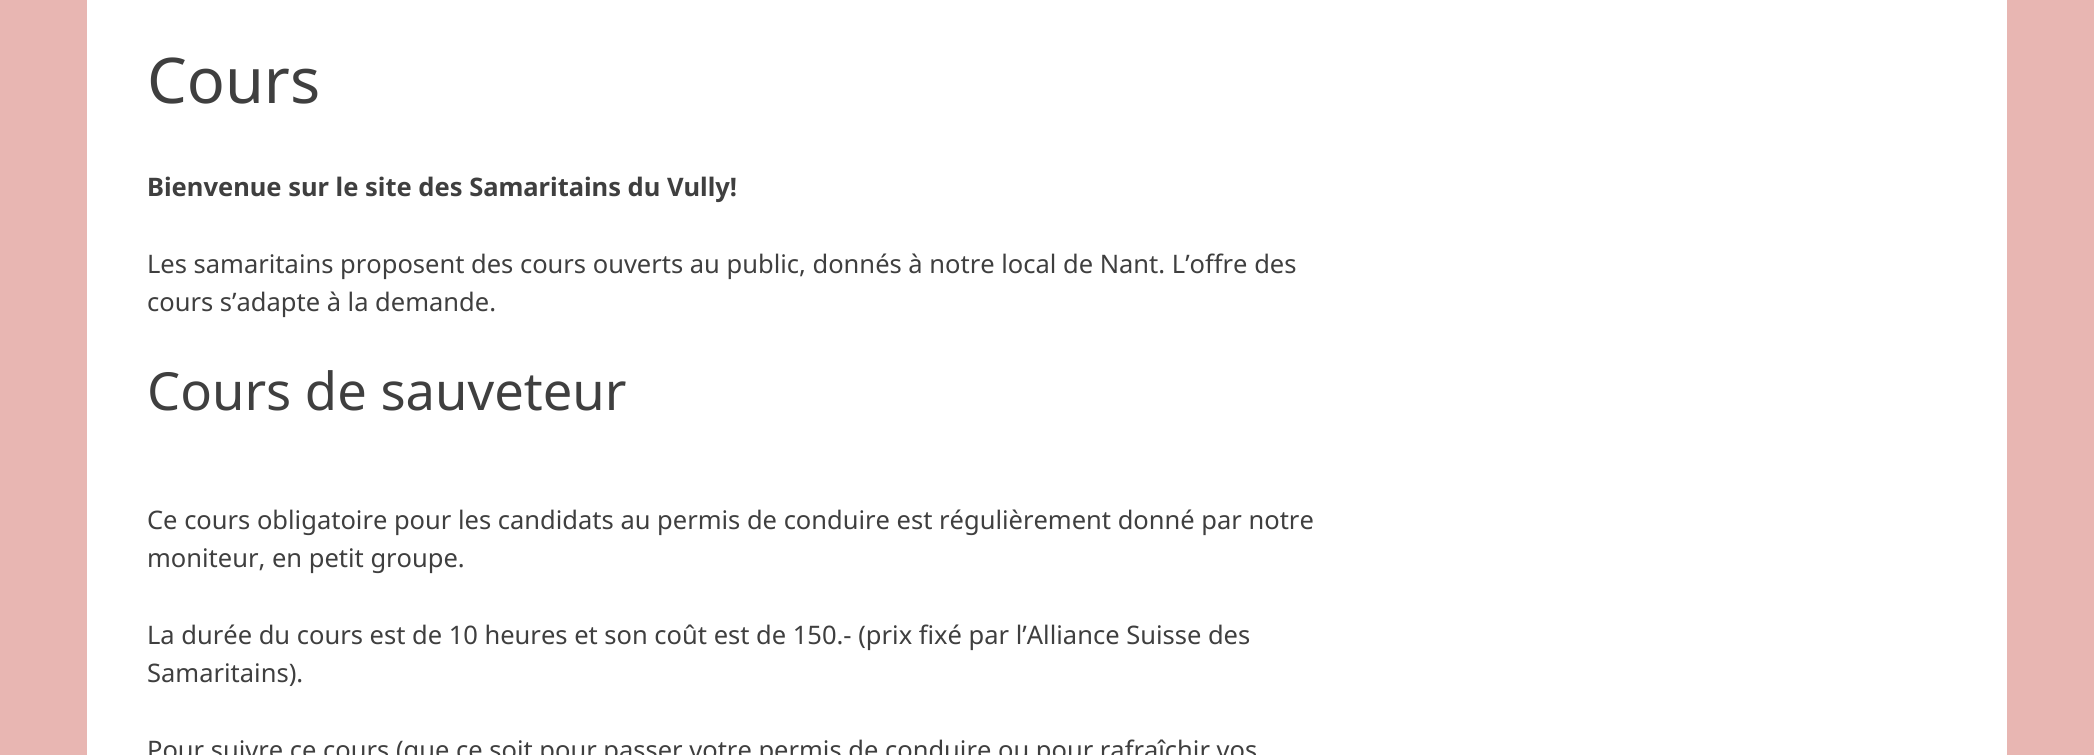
import math
import cairo

surface = cairo.ImageSurface(cairo.FORMAT_RGB24, 2094, 755)
ctx = cairo.Context(surface)
options = cairo.FontOptions()
options.set_hint_metrics(cairo.HINT_METRICS_OFF)
options.set_hint_style(cairo.HINT_STYLE_NONE)
ctx.set_font_options(options)
ctx.set_miter_limit(4)


ctx.set_source_rgb(0.91, 0.714, 0.698)
ctx.paint()
ctx.set_source_rgb(1, 1, 1)
ctx.rectangle(87, 0, 1920, 755)
ctx.fill()
ctx.select_font_face("Noto Sans")
ctx.set_font_size(63)
ctx.set_source_rgb(0.247, 0.247, 0.247)
ctx.move_to(147, 103)
ctx.show_text("Cours")
ctx.select_font_face("Noto Sans", cairo.FONT_SLANT_NORMAL, cairo.FONT_WEIGHT_BOLD)
ctx.set_font_size(25.5)
ctx.move_to(147, 196)
ctx.show_text("Bienvenue sur le site des Samaritains du Vully!")
ctx.select_font_face("Noto Sans")
ctx.move_to(147, 273)
ctx.show_text("Les samaritains proposent des cours ouverts au public, donnés à notre local de Nant. L’offre des")
ctx.move_to(147, 311)
ctx.show_text("cours s’adapte à la demande.")
ctx.set_font_size(52.5)
ctx.move_to(147, 410)
ctx.show_text("Cours de sauveteur")
ctx.set_font_size(25.5)
ctx.move_to(147, 529)
ctx.show_text("Ce cours obligatoire pour les candidats au permis de conduire est régulièrement donné par notre")
ctx.move_to(147, 567)
ctx.show_text("moniteur, en petit groupe.")
ctx.move_to(147, 644)
ctx.show_text("La durée du cours est de 10 heures et son coût est de 150.- (prix fixé par l’Alliance Suisse des")
ctx.move_to(147, 682)
ctx.show_text("Samaritains).")
ctx.move_to(147, 759)
ctx.show_text("Pour suivre ce cours (que ce soit pour passer votre permis de conduire ou pour rafraîchir vos")
surface.write_to_png("page.png")
